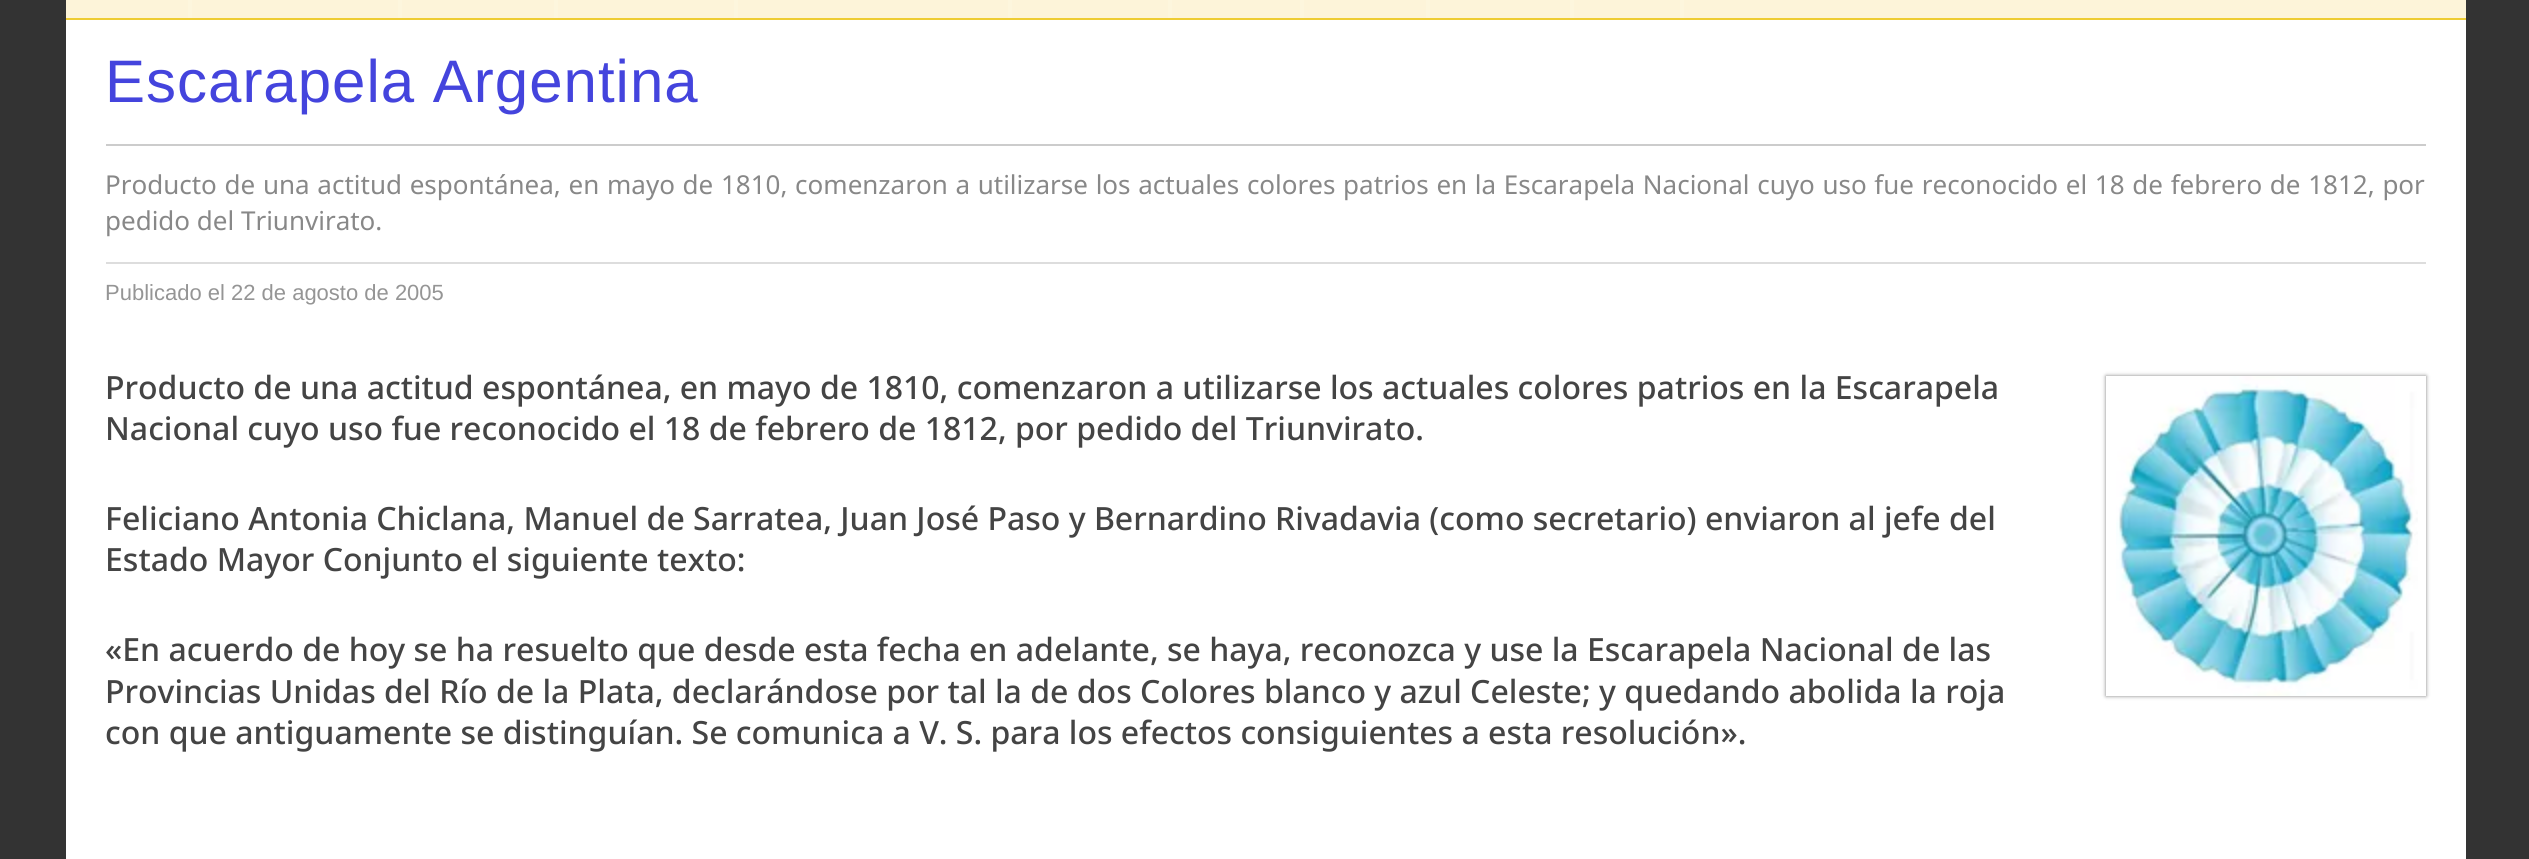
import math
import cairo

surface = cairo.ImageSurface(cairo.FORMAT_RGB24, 2529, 859)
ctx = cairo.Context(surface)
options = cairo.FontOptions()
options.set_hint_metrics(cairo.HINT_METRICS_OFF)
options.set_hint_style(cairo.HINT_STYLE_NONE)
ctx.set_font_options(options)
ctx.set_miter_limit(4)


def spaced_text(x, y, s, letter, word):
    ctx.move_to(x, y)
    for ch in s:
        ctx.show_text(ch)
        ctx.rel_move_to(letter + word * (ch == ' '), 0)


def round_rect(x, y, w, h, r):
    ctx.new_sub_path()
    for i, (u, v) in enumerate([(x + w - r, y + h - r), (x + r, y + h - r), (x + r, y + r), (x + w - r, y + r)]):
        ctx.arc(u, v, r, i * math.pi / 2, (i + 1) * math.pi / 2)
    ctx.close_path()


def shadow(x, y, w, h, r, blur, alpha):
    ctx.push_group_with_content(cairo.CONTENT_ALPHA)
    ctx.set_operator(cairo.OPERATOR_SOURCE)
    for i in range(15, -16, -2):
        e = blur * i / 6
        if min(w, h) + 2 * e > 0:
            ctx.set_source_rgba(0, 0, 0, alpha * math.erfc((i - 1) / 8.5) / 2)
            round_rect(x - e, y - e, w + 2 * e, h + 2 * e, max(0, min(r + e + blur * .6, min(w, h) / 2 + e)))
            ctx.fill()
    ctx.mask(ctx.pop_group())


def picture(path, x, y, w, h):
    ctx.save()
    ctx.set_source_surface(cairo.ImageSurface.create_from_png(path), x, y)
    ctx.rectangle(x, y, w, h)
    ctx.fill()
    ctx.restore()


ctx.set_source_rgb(0.2, 0.2, 0.2)
ctx.paint()
ctx.set_source_rgb(0.992, 0.957, 0.851)
ctx.rectangle(66, 0, 2400, 18)
ctx.fill()
ctx.set_source_rgb(0.933, 0.8, 0.2)
ctx.rectangle(66, 18, 2400, 2)
ctx.fill()
ctx.set_source_rgb(0.992, 0.961, 0.867)
ctx.rectangle(188, 0, 4, 18)
ctx.fill()
ctx.rectangle(398, 0, 4, 18)
ctx.fill()
ctx.rectangle(554, 0, 4, 18)
ctx.fill()
ctx.rectangle(734, 0, 4, 18)
ctx.fill()
ctx.rectangle(1008, 0, 4, 18)
ctx.fill()
ctx.rectangle(1168, 0, 4, 18)
ctx.fill()
ctx.rectangle(1300, 0, 4, 18)
ctx.fill()
ctx.rectangle(1426, 0, 4, 18)
ctx.fill()
ctx.rectangle(1570, 0, 4, 18)
ctx.fill()
ctx.rectangle(1680, 0, 4, 18)
ctx.fill()
ctx.set_source_rgb(1, 1, 1)
ctx.rectangle(66, 20, 2400, 839)
ctx.fill()
ctx.set_source_rgb(0.8, 0.8, 0.8)
ctx.rectangle(106, 144, 2320, 2)
ctx.fill()
ctx.select_font_face("Liberation Sans")
ctx.set_font_size(60)
ctx.set_source_rgb(0.267, 0.267, 0.867)
spaced_text(105, 102, "Escarapela Argentina", 1, 0)
ctx.select_font_face("Noto Sans")
ctx.set_font_size(26)
ctx.set_source_rgb(0.533, 0.533, 0.533)
spaced_text(105, 194, "Producto de una actitud espontánea, en mayo de 1810, comenzaron a utilizarse los actuales colores patrios en la Escarapela Nacional cuyo uso fue reconocido el 18 de febrero de 1812, por", 0, 0.95)
ctx.move_to(105, 230)
ctx.show_text("pedido del Triunvirato.")
ctx.set_source_rgb(0.867, 0.867, 0.867)
ctx.rectangle(106, 262, 2320, 2)
ctx.fill()
ctx.select_font_face("Liberation Sans")
ctx.set_font_size(22)
ctx.set_source_rgb(0.584, 0.584, 0.584)
ctx.move_to(105, 300)
ctx.show_text("Publicado el 22 de agosto de 2005")
ctx.select_font_face("Noto Sans Medium")
ctx.set_font_size(32)
ctx.set_source_rgb(0.267, 0.267, 0.267)
ctx.move_to(105, 399)
ctx.show_text("Producto de una actitud espontánea, en mayo de 1810, comenzaron a utilizarse los actuales colores patrios en la Escarapela")
ctx.move_to(105, 440)
ctx.show_text("Nacional cuyo uso fue reconocido el 18 de febrero de 1812, por pedido del Triunvirato.")
ctx.save()
ctx.set_fill_rule(cairo.FILL_RULE_EVEN_ODD)
ctx.new_path()
ctx.move_to(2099, 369)
ctx.line_to(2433, 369)
ctx.line_to(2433, 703)
ctx.line_to(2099, 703)
ctx.close_path()
ctx.move_to(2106, 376)
ctx.line_to(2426, 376)
ctx.line_to(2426, 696)
ctx.line_to(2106, 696)
ctx.close_path()
ctx.clip()
ctx.set_source_rgb(0, 0, 0)
shadow(2106, 376, 320, 320, 0, 2, 0.5)
ctx.restore()
picture("img1.png", 2116, 376, 302, 320)
ctx.move_to(105, 530)
ctx.show_text("Feliciano Antonia Chiclana, Manuel de Sarratea, Juan José Paso y Bernardino Rivadavia (como secretario) enviaron al jefe del")
ctx.move_to(105, 571)
ctx.show_text("Estado Mayor Conjunto el siguiente texto:")
ctx.move_to(105, 661)
ctx.show_text("«En acuerdo de hoy se ha resuelto que desde esta fecha en adelante, se haya, reconozca y use la Escarapela Nacional de las")
ctx.move_to(105, 703)
ctx.show_text("Provincias Unidas del Río de la Plata, declarándose por tal la de dos Colores blanco y azul Celeste; y quedando abolida la roja")
ctx.move_to(105, 744)
ctx.show_text("con que antiguamente se distinguían. Se comunica a V. S. para los efectos consiguientes a esta resolución».")
surface.write_to_png("page.png")
